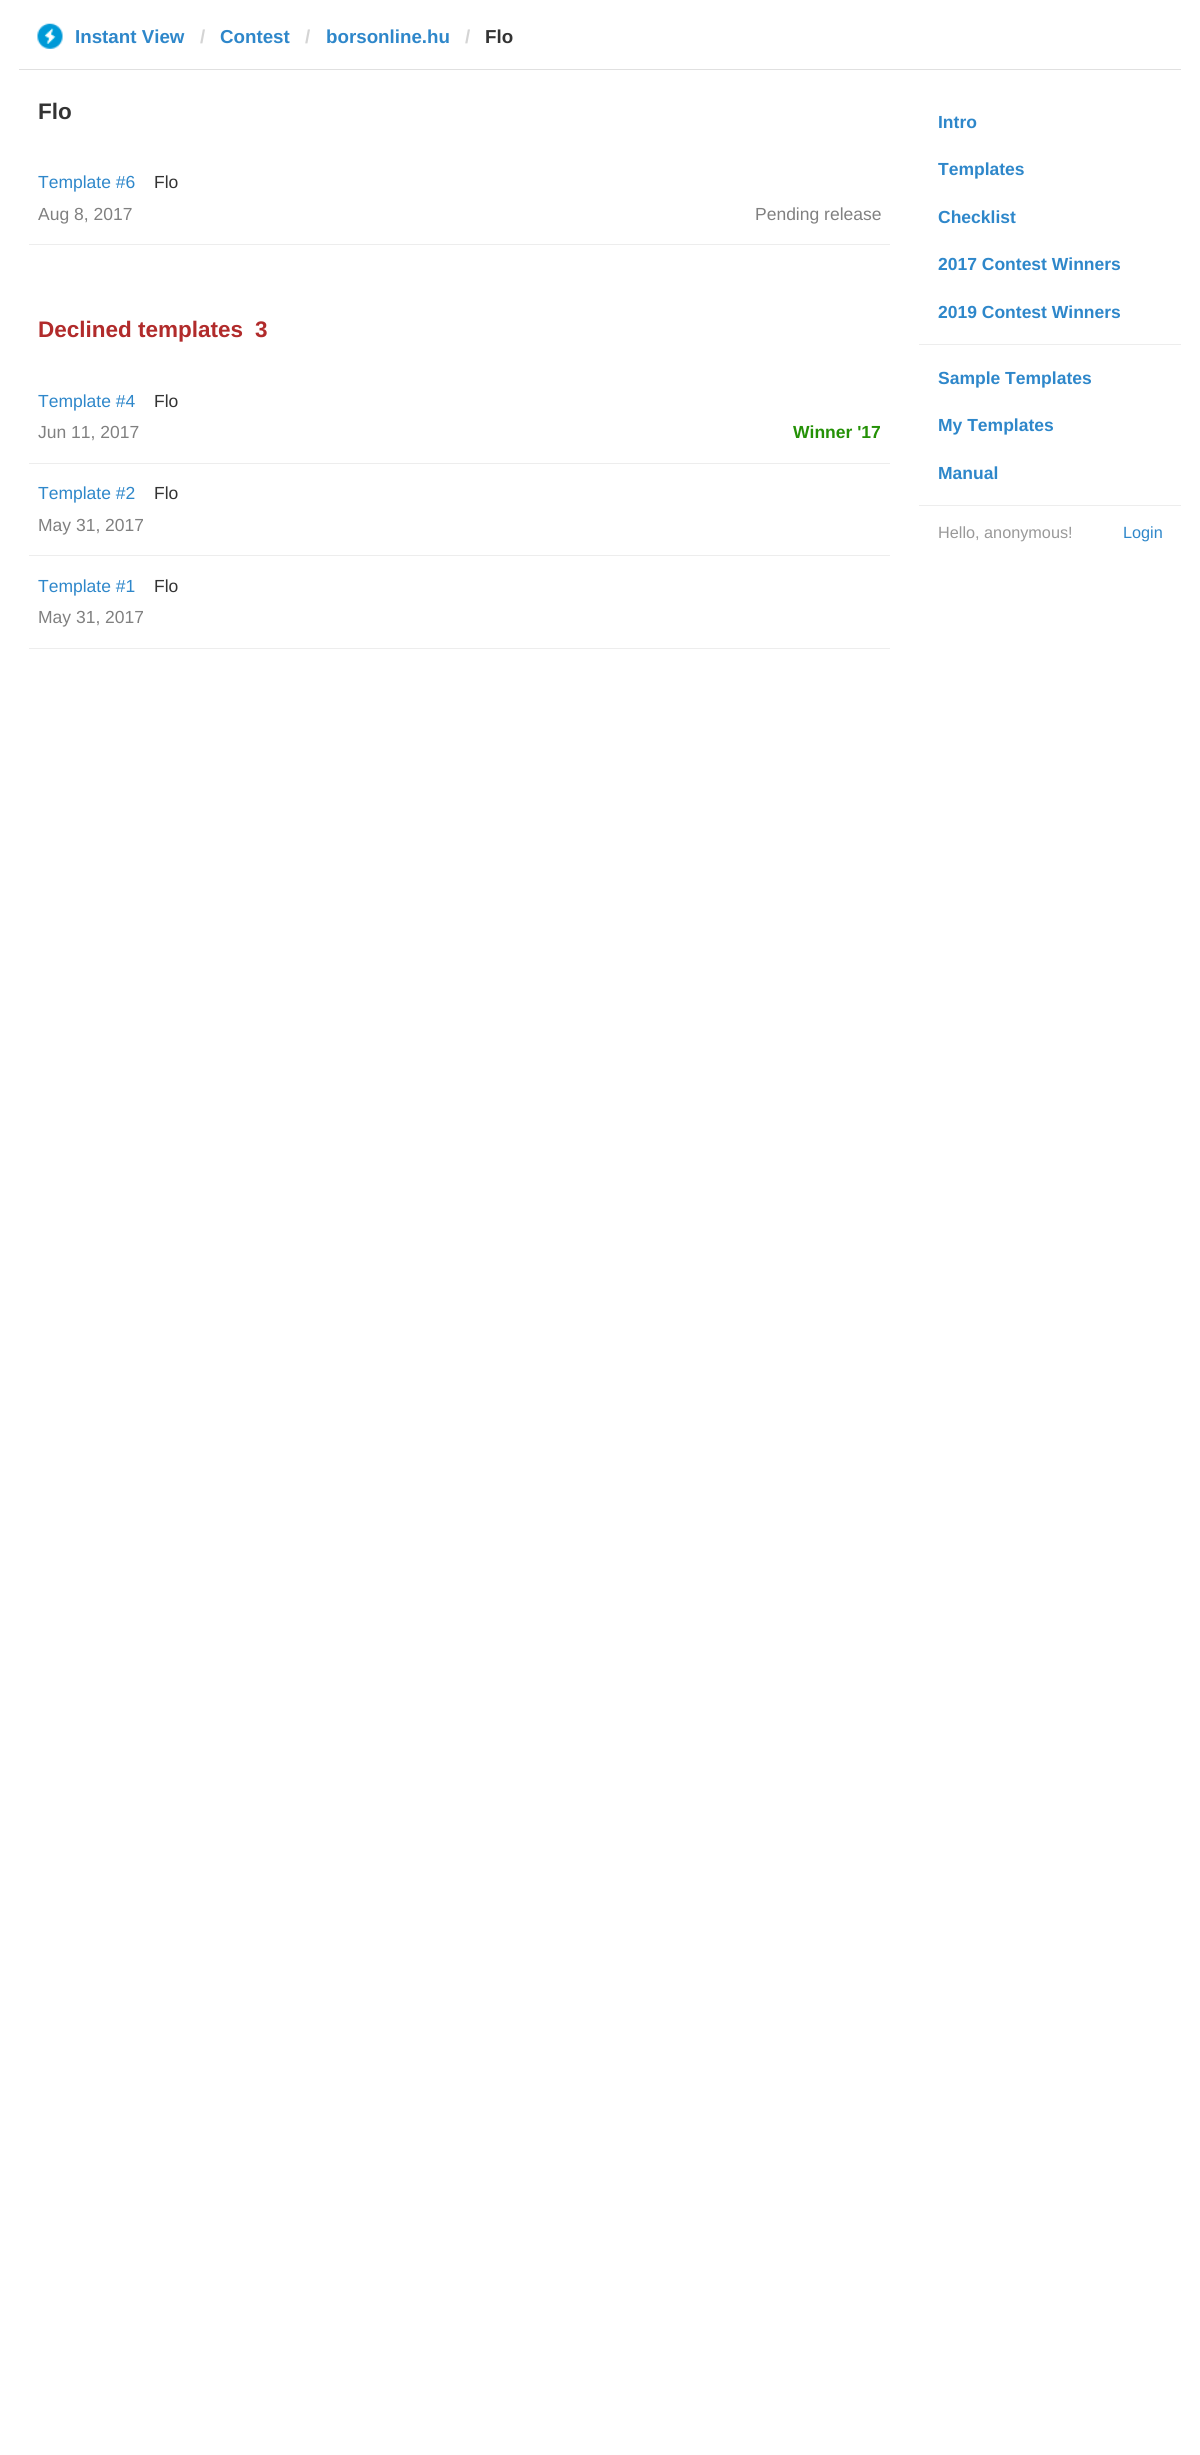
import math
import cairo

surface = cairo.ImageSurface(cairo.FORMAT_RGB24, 1200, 2455)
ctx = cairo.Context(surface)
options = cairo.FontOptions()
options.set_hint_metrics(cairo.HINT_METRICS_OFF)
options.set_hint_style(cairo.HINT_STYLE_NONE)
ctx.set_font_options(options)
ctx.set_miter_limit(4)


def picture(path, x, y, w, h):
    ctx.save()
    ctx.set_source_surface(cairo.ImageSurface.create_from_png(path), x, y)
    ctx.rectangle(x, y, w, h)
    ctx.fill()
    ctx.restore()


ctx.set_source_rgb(1, 1, 1)
ctx.paint()
ctx.set_source_rgb(0.878, 0.878, 0.878)
ctx.rectangle(19, 69, 1162, 1)
ctx.fill()
picture("img1.png", 37, 23, 26, 26)
ctx.select_font_face("Liberation Sans", cairo.FONT_SLANT_NORMAL, cairo.FONT_WEIGHT_BOLD)
ctx.set_font_size(18.75)
ctx.set_source_rgb(0.18, 0.529, 0.792)
ctx.move_to(75, 43)
ctx.show_text("Instant View")
ctx.set_source_rgb(0.831, 0.831, 0.831)
ctx.move_to(200, 43)
ctx.show_text("/")
ctx.set_source_rgb(0.18, 0.529, 0.792)
ctx.move_to(220, 43)
ctx.show_text("Contest")
ctx.set_source_rgb(0.831, 0.831, 0.831)
ctx.move_to(305, 43)
ctx.show_text("/")
ctx.set_source_rgb(0.18, 0.529, 0.792)
ctx.move_to(326, 43)
ctx.show_text("borsonline.hu")
ctx.set_source_rgb(0.831, 0.831, 0.831)
ctx.move_to(465, 43)
ctx.show_text("/")
ctx.set_source_rgb(0.2, 0.2, 0.2)
ctx.move_to(485, 43)
ctx.show_text("Flo")
ctx.set_font_size(22.5)
ctx.move_to(38, 119)
ctx.show_text("Flo")
ctx.set_source_rgb(0.929, 0.929, 0.929)
ctx.rectangle(29, 244, 861, 1)
ctx.fill()
ctx.select_font_face("Liberation Sans")
ctx.set_font_size(17.5)
ctx.set_source_rgb(0.18, 0.529, 0.792)
ctx.move_to(38, 188)
ctx.show_text("Template #6")
ctx.set_source_rgb(0.2, 0.2, 0.2)
ctx.move_to(154, 188)
ctx.show_text("Flo")
ctx.set_source_rgb(0.502, 0.502, 0.502)
ctx.move_to(38, 220)
ctx.show_text("Aug 8, 2017")
ctx.move_to(755, 220)
ctx.show_text("Pending release")
ctx.select_font_face("Liberation Sans", cairo.FONT_SLANT_NORMAL, cairo.FONT_WEIGHT_BOLD)
ctx.set_font_size(22.5)
ctx.set_source_rgb(0.694, 0.169, 0.169)
ctx.move_to(38, 337)
ctx.show_text("Declined templates")
ctx.move_to(255, 337)
ctx.show_text("3")
ctx.set_source_rgb(0.929, 0.929, 0.929)
ctx.rectangle(29, 463, 861, 1)
ctx.fill()
ctx.select_font_face("Liberation Sans")
ctx.set_font_size(17.5)
ctx.set_source_rgb(0.18, 0.529, 0.792)
ctx.move_to(38, 407)
ctx.show_text("Template #4")
ctx.set_source_rgb(0.2, 0.2, 0.2)
ctx.move_to(154, 407)
ctx.show_text("Flo")
ctx.set_source_rgb(0.502, 0.502, 0.502)
ctx.move_to(38, 438)
ctx.show_text("Jun 11, 2017")
ctx.select_font_face("Liberation Sans", cairo.FONT_SLANT_NORMAL, cairo.FONT_WEIGHT_BOLD)
ctx.set_source_rgb(0.141, 0.569, 0.024)
ctx.move_to(793, 438)
ctx.show_text("Winner '17")
ctx.set_source_rgb(0.929, 0.929, 0.929)
ctx.rectangle(29, 555, 861, 1)
ctx.fill()
ctx.select_font_face("Liberation Sans")
ctx.set_source_rgb(0.18, 0.529, 0.792)
ctx.move_to(38, 499)
ctx.show_text("Template #2")
ctx.set_source_rgb(0.2, 0.2, 0.2)
ctx.move_to(154, 499)
ctx.show_text("Flo")
ctx.set_source_rgb(0.502, 0.502, 0.502)
ctx.move_to(38, 531)
ctx.show_text("May 31, 2017")
ctx.set_source_rgb(0.929, 0.929, 0.929)
ctx.rectangle(29, 648, 861, 1)
ctx.fill()
ctx.set_source_rgb(0.18, 0.529, 0.792)
ctx.move_to(38, 592)
ctx.show_text("Template #1")
ctx.set_source_rgb(0.2, 0.2, 0.2)
ctx.move_to(154, 592)
ctx.show_text("Flo")
ctx.set_source_rgb(0.502, 0.502, 0.502)
ctx.move_to(38, 623)
ctx.show_text("May 31, 2017")
ctx.select_font_face("Liberation Sans", cairo.FONT_SLANT_NORMAL, cairo.FONT_WEIGHT_BOLD)
ctx.set_source_rgb(0.18, 0.529, 0.792)
ctx.move_to(938, 128)
ctx.show_text("Intro")
ctx.move_to(938, 175)
ctx.show_text("Templates")
ctx.move_to(938, 223)
ctx.show_text("Checklist")
ctx.move_to(938, 270)
ctx.show_text("2017 Contest Winners")
ctx.move_to(938, 318)
ctx.show_text("2019 Contest Winners")
ctx.set_source_rgb(0.929, 0.929, 0.929)
ctx.rectangle(919, 344, 262, 1)
ctx.fill()
ctx.set_source_rgb(0.18, 0.529, 0.792)
ctx.move_to(938, 384)
ctx.show_text("Sample Templates")
ctx.move_to(938, 431)
ctx.show_text("My Templates")
ctx.move_to(938, 479)
ctx.show_text("Manual")
ctx.set_source_rgb(0.929, 0.929, 0.929)
ctx.rectangle(919, 505, 262, 1)
ctx.fill()
ctx.select_font_face("Liberation Sans")
ctx.set_font_size(16.25)
ctx.set_source_rgb(0.6, 0.6, 0.6)
ctx.move_to(938, 538)
ctx.show_text("Hello, anonymous!")
ctx.set_source_rgb(0.18, 0.529, 0.792)
ctx.move_to(1123, 538)
ctx.show_text("Login")
surface.write_to_png("page.png")
